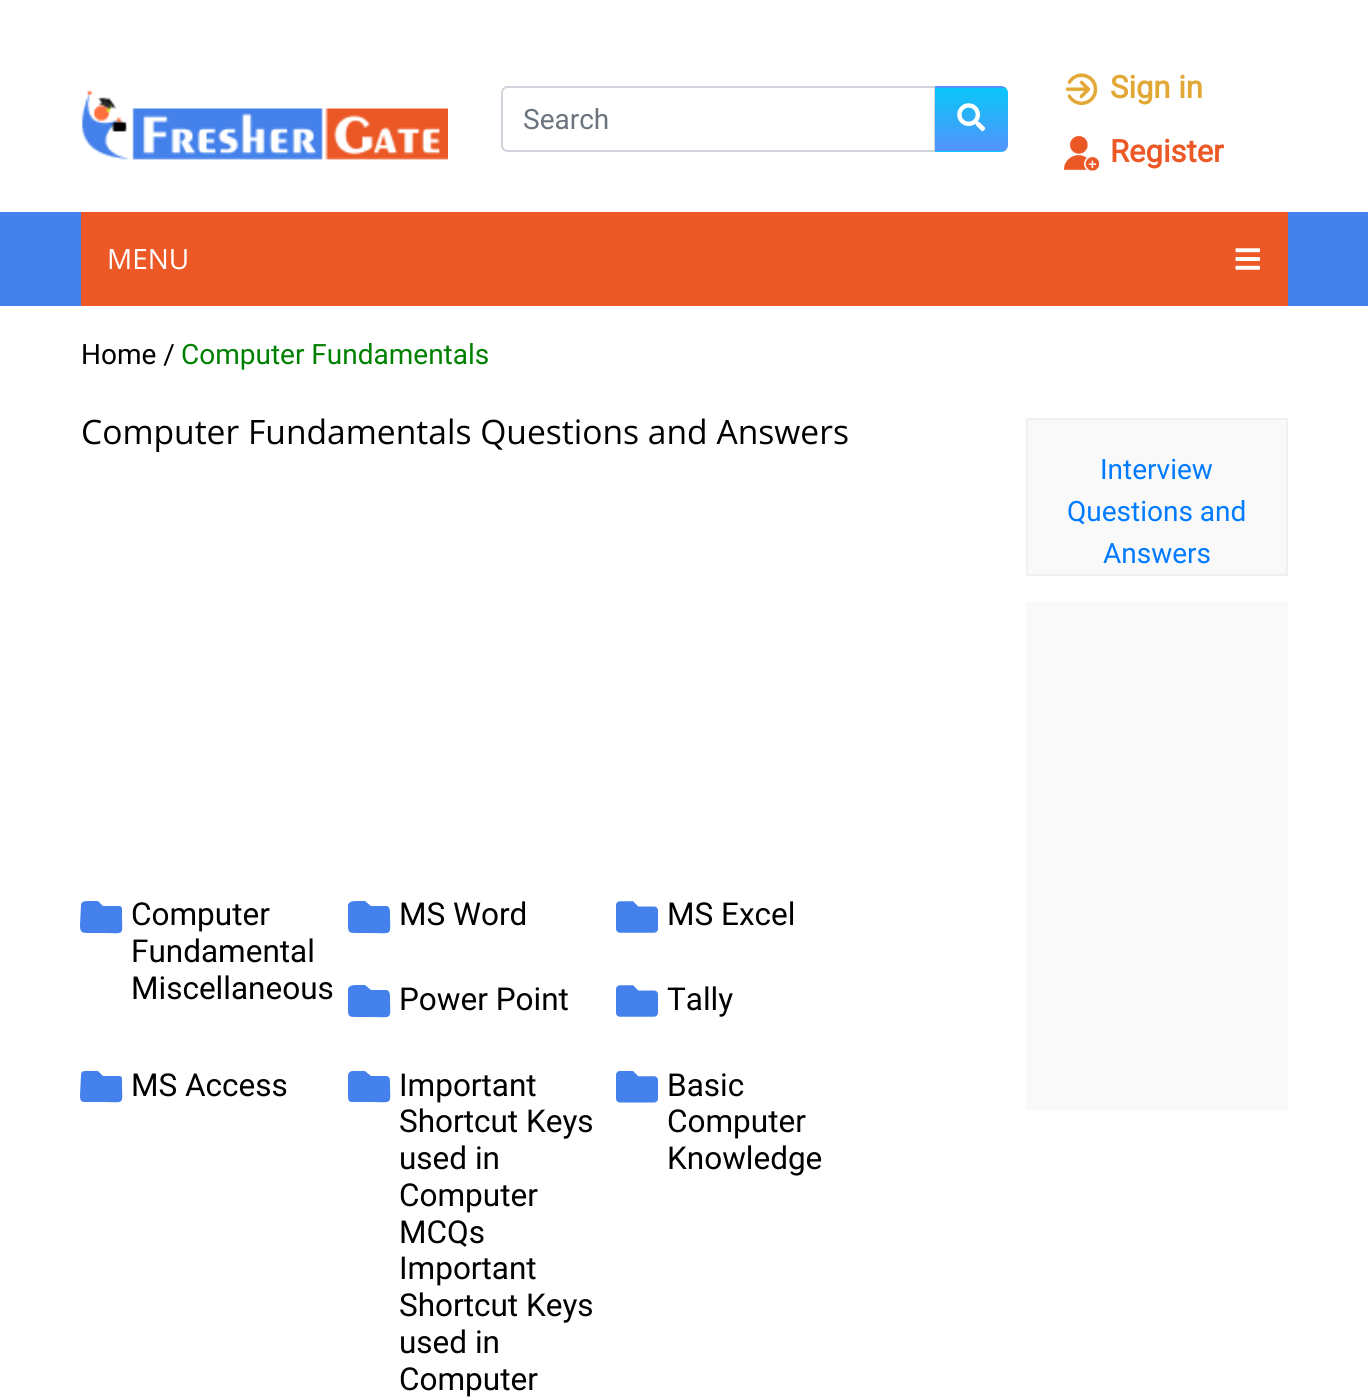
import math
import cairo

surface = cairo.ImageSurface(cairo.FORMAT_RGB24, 1368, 1399)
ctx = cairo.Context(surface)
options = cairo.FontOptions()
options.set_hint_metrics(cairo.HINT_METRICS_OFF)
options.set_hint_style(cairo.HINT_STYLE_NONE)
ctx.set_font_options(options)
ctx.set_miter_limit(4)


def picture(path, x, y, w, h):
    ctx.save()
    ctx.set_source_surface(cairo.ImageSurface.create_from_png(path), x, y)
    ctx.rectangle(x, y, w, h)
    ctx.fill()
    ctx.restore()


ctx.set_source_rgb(1, 1, 1)
ctx.paint()
picture("img1.png", 81, 90, 367, 70)
ctx.new_path()
ctx.move_to(508, 87)
ctx.line_to(935, 87)
ctx.line_to(935, 151)
ctx.line_to(508, 151)
ctx.curve_to(504.5, 151, 502, 148.5, 502, 145)
ctx.line_to(502, 93)
ctx.curve_to(502, 89.5, 504.5, 87, 508, 87)
ctx.close_path()
ctx.set_source_rgb(0.808, 0.831, 0.855)
ctx.stroke()
ctx.select_font_face("Roboto")
ctx.set_font_size(28)
ctx.set_source_rgb(0.424, 0.459, 0.49)
ctx.move_to(523, 129)
ctx.show_text("Search")
ctx.save()
ctx.new_path()
ctx.move_to(935, 86)
ctx.line_to(1001, 86)
ctx.curve_to(1005, 86, 1008, 89, 1008, 93)
ctx.line_to(1008, 145)
ctx.curve_to(1008, 149, 1005, 152, 1001, 152)
ctx.line_to(935, 152)
ctx.close_path()
ctx.clip()
gradient = cairo.LinearGradient(971, 88, 971, 25)
gradient.add_color_stop_rgba(0, 0.325, 0.58, 0.98, 1)
gradient.add_color_stop_rgba(1, 0.035, 0.776, 0.976, 1)
ctx.set_source(gradient)
ctx.rectangle(935, 86, 73, 2)
ctx.fill()
gradient = cairo.LinearGradient(971, 151, 971, 88)
gradient.add_color_stop_rgba(0, 0.325, 0.58, 0.98, 1)
gradient.add_color_stop_rgba(1, 0.035, 0.776, 0.976, 1)
ctx.set_source(gradient)
ctx.rectangle(935, 88, 73, 63)
ctx.fill()
gradient = cairo.LinearGradient(971, 214, 971, 151)
gradient.add_color_stop_rgba(0, 0.325, 0.58, 0.98, 1)
gradient.add_color_stop_rgba(1, 0.035, 0.776, 0.976, 1)
ctx.set_source(gradient)
ctx.rectangle(935, 151, 73, 1)
ctx.fill()
ctx.restore()
picture("img2.png", 957, 103, 29, 29)
picture("img3.png", 1065, 73, 33, 33)
ctx.select_font_face("Roboto", cairo.FONT_SLANT_NORMAL, cairo.FONT_WEIGHT_BOLD)
ctx.set_font_size(31)
ctx.set_source_rgb(0.886, 0.659, 0.208)
ctx.move_to(1110, 98)
ctx.show_text("Sign in")
picture("img4.png", 1063, 135, 37, 36)
ctx.set_source_rgb(0.922, 0.345, 0.149)
ctx.move_to(1110, 162)
ctx.show_text("Register")
ctx.set_source_rgb(0.267, 0.506, 0.922)
ctx.rectangle(0, 212, 1368, 94)
ctx.fill()
ctx.set_source_rgb(0.922, 0.345, 0.149)
ctx.rectangle(81, 212, 1207, 94)
ctx.fill()
ctx.select_font_face("Open Sans")
ctx.set_font_size(28)
ctx.set_source_rgb(1, 1, 1)
ctx.move_to(107, 269)
ctx.show_text("MENU")
picture("img5.png", 1235, 248, 25, 22)
ctx.select_font_face("Roboto")
ctx.set_source_rgb(0, 0, 0)
ctx.move_to(81, 364)
ctx.show_text("Home /")
ctx.set_source_rgb(0, 0.502, 0)
ctx.move_to(181, 364)
ctx.show_text("Computer Fundamentals")
ctx.select_font_face("Open Sans")
ctx.set_font_size(33.6)
ctx.set_source_rgb(0, 0, 0)
ctx.move_to(81, 444)
ctx.show_text("Computer Fundamentals Questions and Answers")
ctx.set_source_rgb(0.267, 0.506, 0.922)
ctx.new_path()
ctx.move_to(119, 906)
ctx.curve_to(123, 906, 122, 911, 122, 914)
ctx.curve_to(122, 937, 126, 933, 102, 933)
ctx.line_to(90, 933)
ctx.curve_to(82, 933, 80, 933, 80, 925)
ctx.line_to(81, 905)
ctx.curve_to(81, 901, 86, 901, 89, 901)
ctx.line_to(98, 901)
ctx.line_to(103, 906)
ctx.close_path()
ctx.fill()
ctx.select_font_face("Roboto")
ctx.set_font_size(31.5)
ctx.set_source_rgb(0, 0, 0)
ctx.move_to(131, 925)
ctx.show_text("Computer")
ctx.move_to(131, 962)
ctx.show_text("Fundamental")
ctx.move_to(131, 999)
ctx.show_text("Miscellaneous")
ctx.set_source_rgb(0.267, 0.506, 0.922)
ctx.new_path()
ctx.move_to(386, 906)
ctx.curve_to(390, 906, 390, 911, 390, 914)
ctx.curve_to(390, 937, 394, 933, 369, 933)
ctx.line_to(358, 933)
ctx.curve_to(349, 933, 348, 933, 348, 925)
ctx.line_to(348, 905)
ctx.curve_to(349, 901, 354, 901, 357, 901)
ctx.line_to(365, 901)
ctx.line_to(371, 906)
ctx.close_path()
ctx.fill()
ctx.set_source_rgb(0, 0, 0)
ctx.move_to(399, 925)
ctx.show_text("MS Word")
picture("img6.png", 616, 901, 42, 32)
ctx.move_to(667, 925)
ctx.show_text("MS Excel")
ctx.set_source_rgb(0.267, 0.506, 0.922)
ctx.new_path()
ctx.move_to(386, 990)
ctx.curve_to(390, 990, 390, 995, 390, 998)
ctx.curve_to(390, 1021, 394, 1017, 369, 1017)
ctx.line_to(358, 1017)
ctx.curve_to(349, 1017, 348, 1017, 348, 1009)
ctx.line_to(348, 989)
ctx.curve_to(349, 985, 354, 985, 357, 985)
ctx.line_to(365, 985)
ctx.line_to(371, 990)
ctx.close_path()
ctx.fill()
ctx.set_source_rgb(0, 0, 0)
ctx.move_to(399, 1010)
ctx.show_text("Power Point")
picture("img6.png", 616, 985, 42, 32)
ctx.move_to(667, 1010)
ctx.show_text("Tally")
ctx.set_source_rgb(0.267, 0.506, 0.922)
ctx.new_path()
ctx.move_to(119, 1076)
ctx.curve_to(123, 1076, 122, 1080, 122, 1083)
ctx.curve_to(122, 1106, 126, 1102, 102, 1102)
ctx.line_to(90, 1102)
ctx.curve_to(82, 1102, 80, 1103, 80, 1095)
ctx.line_to(81, 1075)
ctx.curve_to(81, 1070, 86, 1071, 89, 1071)
ctx.line_to(98, 1071)
ctx.line_to(103, 1076)
ctx.close_path()
ctx.fill()
ctx.set_source_rgb(0, 0, 0)
ctx.move_to(131, 1096)
ctx.show_text("MS Access")
ctx.set_source_rgb(0.267, 0.506, 0.922)
ctx.new_path()
ctx.move_to(386, 1076)
ctx.curve_to(390, 1076, 390, 1080, 390, 1083)
ctx.curve_to(390, 1106, 394, 1102, 369, 1102)
ctx.line_to(358, 1102)
ctx.curve_to(349, 1102, 348, 1103, 348, 1095)
ctx.line_to(348, 1075)
ctx.curve_to(349, 1070, 354, 1071, 357, 1071)
ctx.line_to(365, 1071)
ctx.line_to(371, 1076)
ctx.close_path()
ctx.fill()
ctx.set_source_rgb(0, 0, 0)
ctx.move_to(399, 1096)
ctx.show_text("Important")
ctx.move_to(399, 1132)
ctx.show_text("Shortcut Keys")
ctx.move_to(399, 1169)
ctx.show_text("used in")
ctx.move_to(399, 1206)
ctx.show_text("Computer")
ctx.move_to(399, 1243)
ctx.show_text("MCQs")
ctx.move_to(399, 1279)
ctx.show_text("Important")
ctx.move_to(399, 1316)
ctx.show_text("Shortcut Keys")
ctx.move_to(399, 1353)
ctx.show_text("used in")
ctx.move_to(399, 1390)
ctx.show_text("Computer")
picture("img7.png", 616, 1071, 42, 32)
ctx.move_to(667, 1096)
ctx.show_text("Basic")
ctx.move_to(667, 1132)
ctx.show_text("Computer")
ctx.move_to(667, 1169)
ctx.show_text("Knowledge")
ctx.set_source_rgb(0.976, 0.976, 0.976)
ctx.rectangle(1027, 419, 260, 156)
ctx.fill_preserve()
ctx.set_source_rgb(0.941, 0.941, 0.941)
ctx.stroke()
ctx.set_font_size(28)
ctx.set_source_rgb(0, 0.482, 1)
ctx.move_to(1100, 479)
ctx.show_text("Interview")
ctx.move_to(1067, 521)
ctx.show_text("Questions and")
ctx.move_to(1103, 563)
ctx.show_text("Answers")
ctx.set_source_rgb(0.976, 0.976, 0.976)
ctx.rectangle(1026, 602, 262, 508)
ctx.fill()
surface.write_to_png("page.png")
